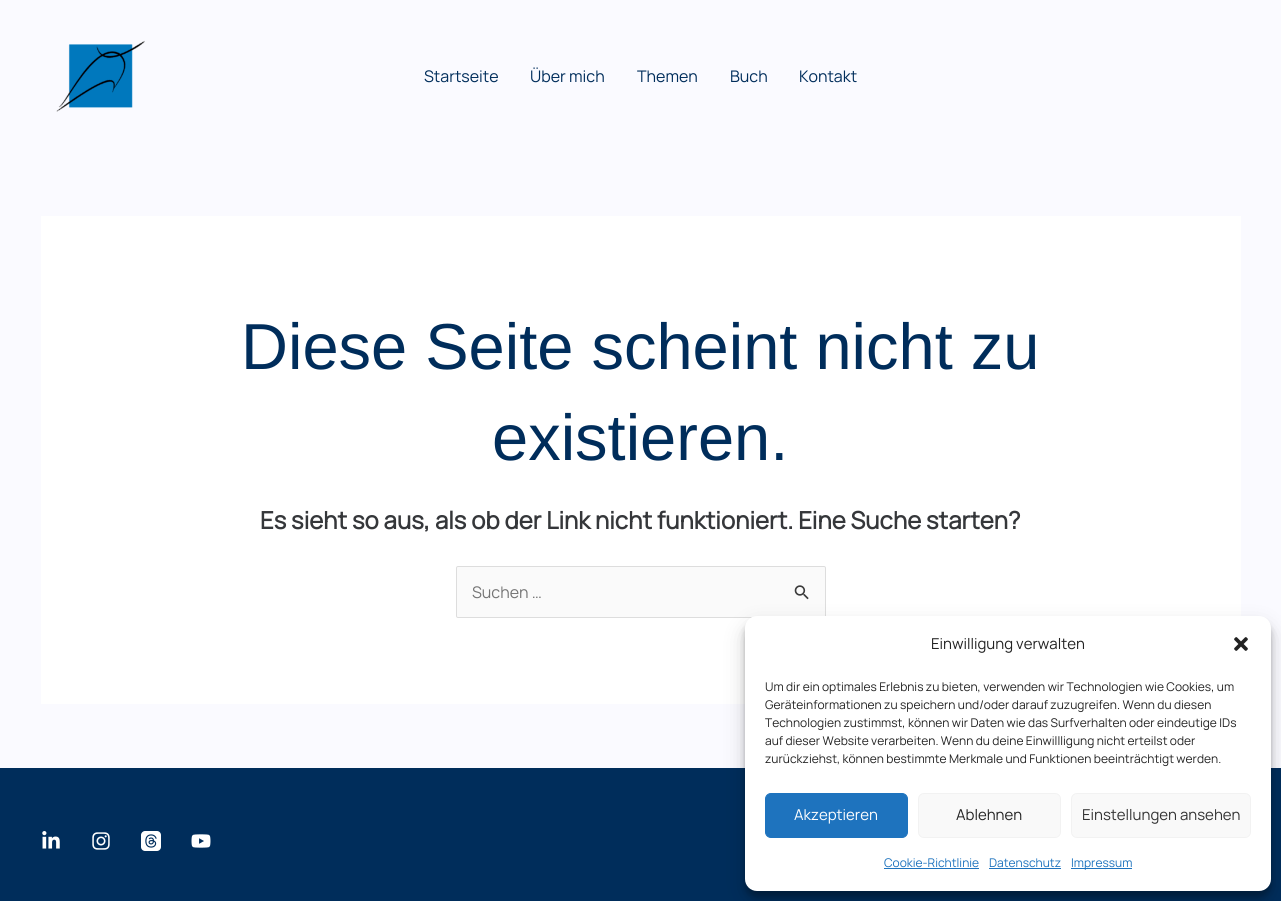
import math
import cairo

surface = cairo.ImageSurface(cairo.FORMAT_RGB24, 1281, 901)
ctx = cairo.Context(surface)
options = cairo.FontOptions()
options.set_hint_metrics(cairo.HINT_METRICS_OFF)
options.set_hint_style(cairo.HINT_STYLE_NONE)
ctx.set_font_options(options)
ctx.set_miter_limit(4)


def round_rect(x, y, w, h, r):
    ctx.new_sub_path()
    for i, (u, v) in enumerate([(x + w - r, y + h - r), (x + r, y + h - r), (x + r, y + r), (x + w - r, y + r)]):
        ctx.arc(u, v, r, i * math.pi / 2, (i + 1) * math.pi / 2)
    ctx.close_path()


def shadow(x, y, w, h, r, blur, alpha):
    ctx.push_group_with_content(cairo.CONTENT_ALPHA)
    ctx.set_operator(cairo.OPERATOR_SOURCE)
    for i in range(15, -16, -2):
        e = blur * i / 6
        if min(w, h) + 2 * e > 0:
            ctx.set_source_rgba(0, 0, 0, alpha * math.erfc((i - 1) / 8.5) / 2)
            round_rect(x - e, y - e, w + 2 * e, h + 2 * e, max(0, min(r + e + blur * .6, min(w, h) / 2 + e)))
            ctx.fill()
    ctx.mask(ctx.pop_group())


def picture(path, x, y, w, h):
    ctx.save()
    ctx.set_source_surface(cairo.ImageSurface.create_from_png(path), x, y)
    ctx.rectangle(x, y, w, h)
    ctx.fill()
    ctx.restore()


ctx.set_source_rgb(0.98, 0.98, 1)
ctx.paint()
picture("img1.png", 56, 40, 89, 72)
ctx.select_font_face("Manrope ExtraLight")
ctx.set_font_size(16)
ctx.set_source_rgb(0, 0.176, 0.357)
ctx.move_to(424, 82)
ctx.show_text("Startseite")
ctx.move_to(530, 82)
ctx.show_text("Über mich")
ctx.move_to(637, 82)
ctx.show_text("Themen")
ctx.move_to(730, 82)
ctx.show_text("Buch")
ctx.move_to(799, 82)
ctx.show_text("Kontakt")
ctx.set_source_rgb(1, 1, 1)
ctx.rectangle(41, 216, 1200, 488)
ctx.fill()
ctx.select_font_face("Liberation Sans")
ctx.set_font_size(65)
ctx.set_source_rgb(0, 0.176, 0.357)
ctx.move_to(241, 369)
ctx.show_text("Diese Seite scheint nicht zu")
ctx.move_to(492, 460)
ctx.show_text("existieren.")
ctx.select_font_face("Manrope", cairo.FONT_SLANT_NORMAL, cairo.FONT_WEIGHT_BOLD)
ctx.set_font_size(24)
ctx.set_source_rgb(0.208, 0.216, 0.227)
ctx.move_to(260, 529)
ctx.show_text("Es sieht so aus, als ob der Link nicht funktioniert. Eine Suche starten?")
ctx.set_source_rgb(0.98, 0.98, 0.98)
round_rect(456.5, 566.5, 369, 51, 1.5)
ctx.fill_preserve()
ctx.set_source_rgb(0.867, 0.867, 0.867)
ctx.set_line_width(1)
ctx.stroke()
ctx.select_font_face("Manrope ExtraLight")
ctx.set_font_size(16)
ctx.set_source_rgb(0.459, 0.459, 0.459)
ctx.move_to(472, 598)
ctx.show_text("Suchen …")
picture("img2.png", 794, 585, 15, 15)
ctx.set_source_rgb(0, 0.176, 0.357)
ctx.rectangle(0, 768, 1281, 133)
ctx.fill()
picture("img3.png", 42, 831, 18, 18)
picture("img4.png", 92, 832, 18, 18)
picture("img5.png", 141, 831, 20, 20)
picture("img6.png", 191, 834, 20, 14)
ctx.set_source_rgb(0, 0, 0)
shadow(745, 622, 526, 275, 12, 3, 0.23)
shadow(745, 626, 526, 275, 12, 10, 0.19)
ctx.set_source_rgb(1, 1, 1)
round_rect(745, 616, 526, 275, 12)
ctx.fill()
ctx.set_font_size(15)
ctx.set_source_rgb(0.133, 0.133, 0.133)
ctx.move_to(931, 649)
ctx.show_text("Einwilligung verwalten")
picture("img7.png", 1234, 637, 14, 14)
ctx.set_font_size(12)
ctx.move_to(765, 691)
ctx.show_text("Um dir ein optimales Erlebnis zu bieten, verwenden wir Technologien wie Cookies, um")
ctx.move_to(765, 709)
ctx.show_text("Geräteinformationen zu speichern und/oder darauf zuzugreifen. Wenn du diesen")
ctx.move_to(765, 727)
ctx.show_text("Technologien zustimmst, können wir Daten wie das Surfverhalten oder eindeutige IDs")
ctx.move_to(765, 745)
ctx.show_text("auf dieser Website verarbeiten. Wenn du deine Einwillligung nicht erteilst oder")
ctx.move_to(765, 763)
ctx.show_text("zurückziehst, können bestimmte Merkmale und Funktionen beeinträchtigt werden.")
ctx.set_source_rgb(0.118, 0.451, 0.745)
round_rect(765.5, 793.5, 142, 44, 5.5)
ctx.fill_preserve()
ctx.stroke()
ctx.set_font_size(15)
ctx.set_source_rgb(1, 1, 1)
ctx.move_to(794, 820)
ctx.show_text("Akzeptieren")
ctx.set_source_rgb(0.976, 0.976, 0.976)
round_rect(918.5, 793.5, 142, 44, 5.5)
ctx.fill_preserve()
ctx.set_source_rgb(0.949, 0.949, 0.949)
ctx.stroke()
ctx.set_source_rgb(0.133, 0.133, 0.133)
ctx.move_to(956, 820)
ctx.show_text("Ablehnen")
ctx.set_source_rgb(0.976, 0.976, 0.976)
round_rect(1071.5, 793.5, 179, 44, 5.5)
ctx.fill_preserve()
ctx.set_source_rgb(0.949, 0.949, 0.949)
ctx.stroke()
ctx.set_source_rgb(0.2, 0.2, 0.2)
ctx.move_to(1082, 820)
ctx.show_text("Einstellungen ansehen")
ctx.set_font_size(12)
ctx.set_source_rgb(0.118, 0.451, 0.745)
ctx.move_to(884, 867)
ctx.show_text("Cookie-Richtlinie")
ctx.rectangle(884, 868, 95, 1)
ctx.fill()
ctx.move_to(989, 867)
ctx.show_text("Datenschutz")
ctx.rectangle(989, 868, 72, 1)
ctx.fill()
ctx.rectangle(1071, 868, 61, 1)
ctx.fill()
ctx.move_to(1071, 867)
ctx.show_text("Impressum")
surface.write_to_png("page.png")
